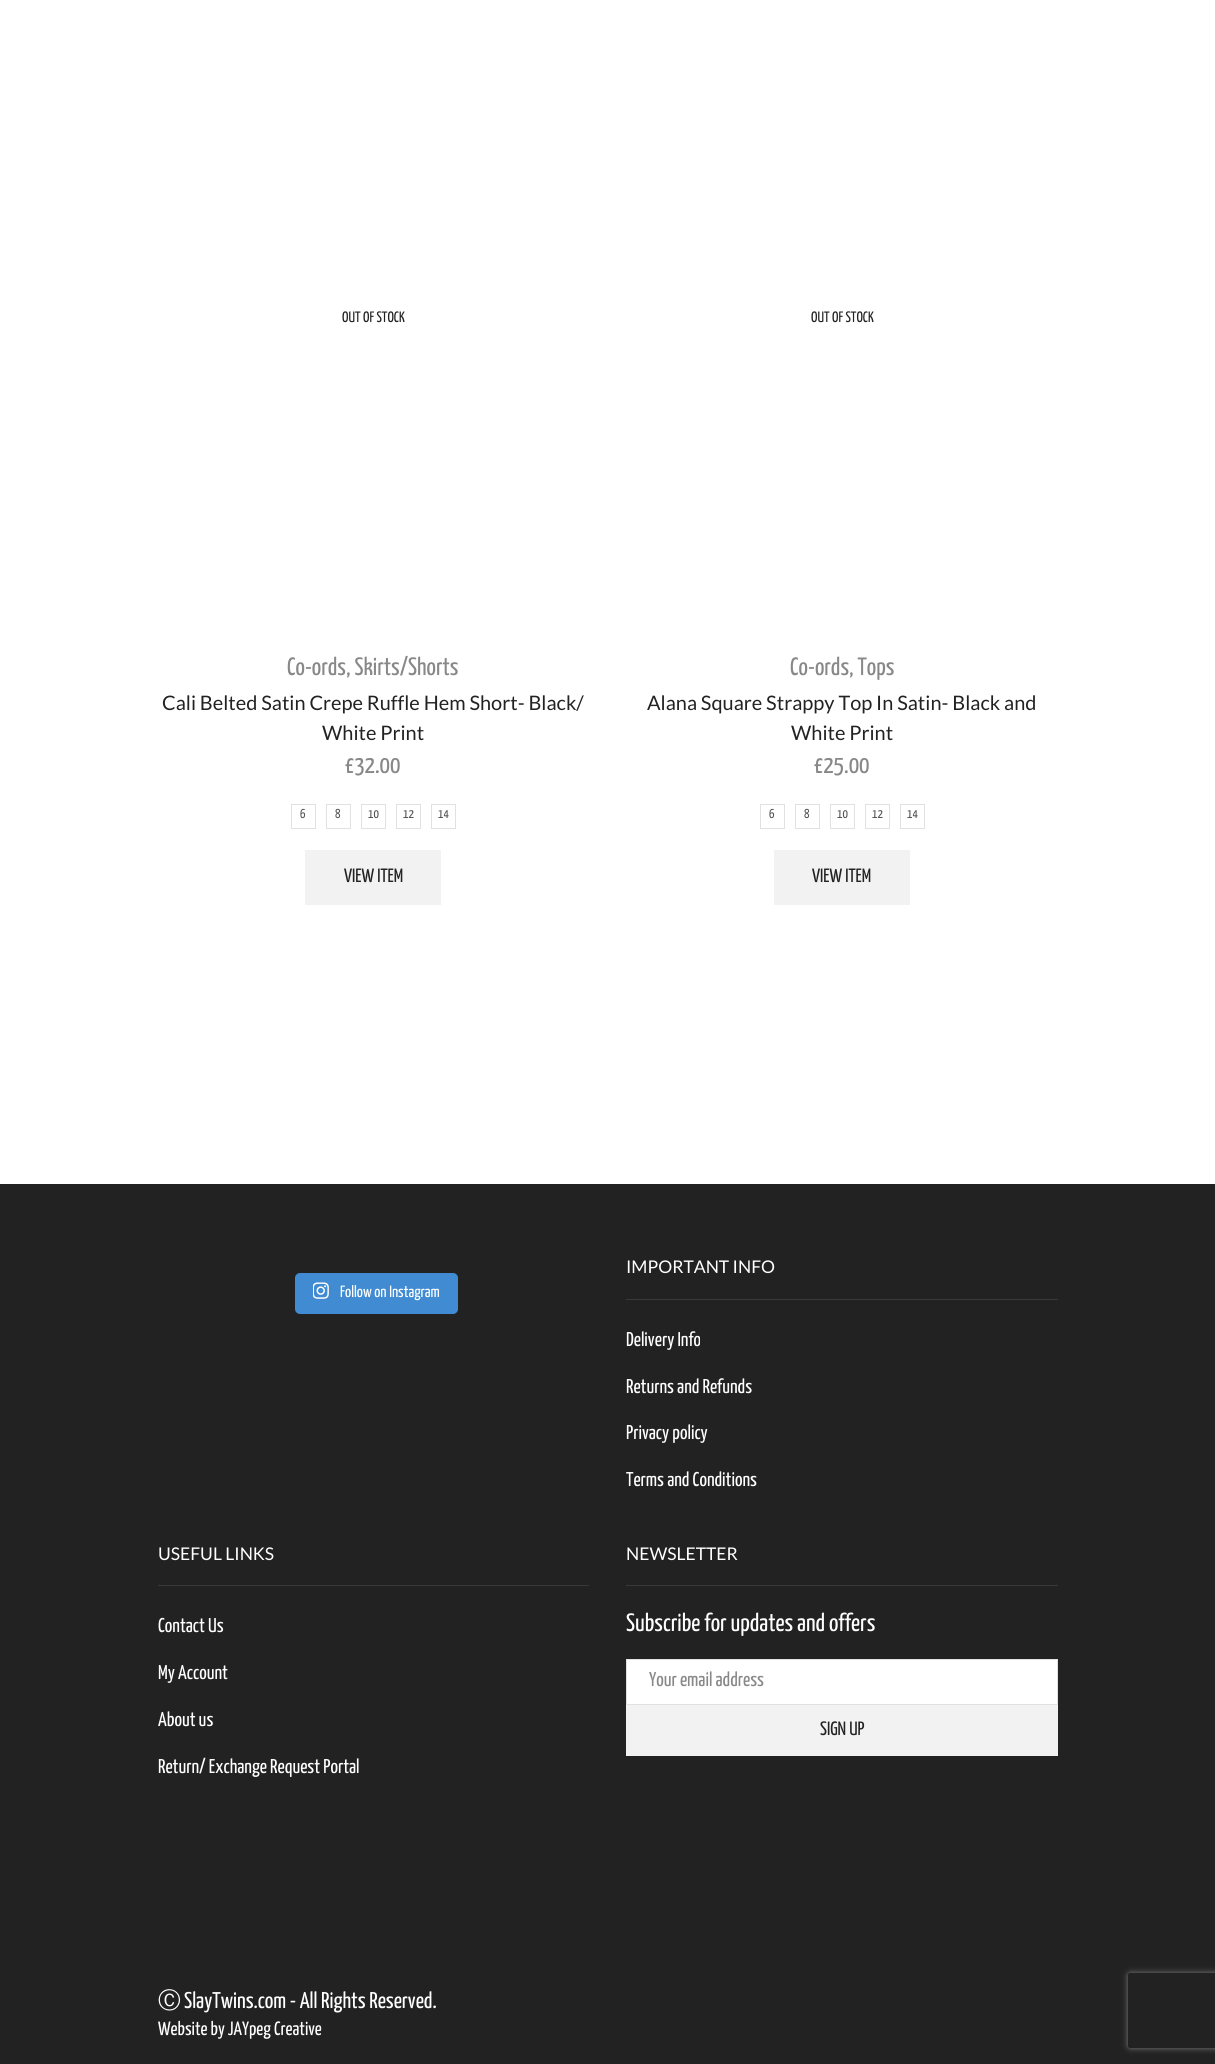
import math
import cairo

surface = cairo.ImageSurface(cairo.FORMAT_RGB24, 1215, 2064)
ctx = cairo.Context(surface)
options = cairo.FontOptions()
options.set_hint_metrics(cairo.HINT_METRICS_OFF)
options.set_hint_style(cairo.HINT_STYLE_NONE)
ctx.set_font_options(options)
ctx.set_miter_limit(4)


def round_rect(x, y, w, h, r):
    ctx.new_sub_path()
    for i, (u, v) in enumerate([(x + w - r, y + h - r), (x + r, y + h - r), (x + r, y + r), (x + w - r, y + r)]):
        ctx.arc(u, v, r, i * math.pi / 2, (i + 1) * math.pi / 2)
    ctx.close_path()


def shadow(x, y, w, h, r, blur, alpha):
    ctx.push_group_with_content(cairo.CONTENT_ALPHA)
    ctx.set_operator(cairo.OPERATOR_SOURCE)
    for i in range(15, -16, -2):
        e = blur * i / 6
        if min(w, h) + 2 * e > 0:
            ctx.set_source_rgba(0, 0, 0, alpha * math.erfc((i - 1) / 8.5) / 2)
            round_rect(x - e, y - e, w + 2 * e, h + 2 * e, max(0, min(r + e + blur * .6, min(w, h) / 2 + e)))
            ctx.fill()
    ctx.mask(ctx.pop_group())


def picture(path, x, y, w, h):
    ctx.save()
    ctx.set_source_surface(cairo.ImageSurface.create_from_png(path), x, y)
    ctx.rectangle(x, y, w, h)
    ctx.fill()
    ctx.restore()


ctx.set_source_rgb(1, 1, 1)
ctx.paint()
ctx.select_font_face("Yanone Kaffeesatz ExtraLight")
ctx.set_font_size(15)
ctx.set_source_rgb(0.133, 0.133, 0.133)
ctx.move_to(342, 322)
ctx.show_text("OUT OF STOCK")
ctx.set_font_size(25)
ctx.set_source_rgb(0.533, 0.533, 0.533)
ctx.move_to(287, 675)
ctx.show_text("Co-ords, Skirts/Shorts")
ctx.select_font_face("Lato")
ctx.set_font_size(19.95)
ctx.set_source_rgb(0.133, 0.133, 0.133)
ctx.move_to(162, 710)
ctx.show_text("Cali Belted Satin Crepe Ruffle Hem Short- Black/")
ctx.move_to(322, 740)
ctx.show_text("White Print")
ctx.select_font_face("Yanone Kaffeesatz ExtraLight")
ctx.set_font_size(25)
ctx.set_source_rgb(0.533, 0.533, 0.533)
ctx.move_to(345, 773)
ctx.show_text("£32.00")
ctx.rectangle(291.5, 804.5, 24, 24)
ctx.set_source_rgb(0.882, 0.882, 0.882)
ctx.set_line_width(1)
ctx.stroke()
ctx.set_font_size(13)
ctx.set_source_rgb(0.333, 0.333, 0.333)
ctx.move_to(300, 818)
ctx.show_text("6")
ctx.rectangle(326.5, 804.5, 24, 24)
ctx.set_source_rgb(0.882, 0.882, 0.882)
ctx.stroke()
ctx.set_source_rgb(0.333, 0.333, 0.333)
ctx.move_to(335, 818)
ctx.show_text("8")
ctx.rectangle(361.5, 804.5, 24, 24)
ctx.set_source_rgb(0.882, 0.882, 0.882)
ctx.stroke()
ctx.set_source_rgb(0.333, 0.333, 0.333)
ctx.move_to(368, 818)
ctx.show_text("10")
ctx.rectangle(396.5, 804.5, 24, 24)
ctx.set_source_rgb(0.882, 0.882, 0.882)
ctx.stroke()
ctx.set_source_rgb(0.333, 0.333, 0.333)
ctx.move_to(403, 818)
ctx.show_text("12")
ctx.rectangle(431.5, 804.5, 24, 24)
ctx.set_source_rgb(0.882, 0.882, 0.882)
ctx.stroke()
ctx.set_source_rgb(0.333, 0.333, 0.333)
ctx.move_to(438, 818)
ctx.show_text("14")
ctx.set_source_rgb(0.949, 0.949, 0.949)
ctx.rectangle(305, 850, 136, 55)
ctx.fill()
ctx.set_font_size(19.25)
ctx.set_source_rgb(0.133, 0.133, 0.133)
ctx.move_to(344, 882)
ctx.show_text("VIEW ITEM")
ctx.set_font_size(15)
ctx.move_to(811, 322)
ctx.show_text("OUT OF STOCK")
ctx.set_font_size(25)
ctx.set_source_rgb(0.533, 0.533, 0.533)
ctx.move_to(790, 675)
ctx.show_text("Co-ords, Tops")
ctx.select_font_face("Lato")
ctx.set_font_size(19.95)
ctx.set_source_rgb(0.133, 0.133, 0.133)
ctx.move_to(647, 710)
ctx.show_text("Alana Square Strappy Top In Satin- Black and")
ctx.move_to(791, 740)
ctx.show_text("White Print")
ctx.select_font_face("Yanone Kaffeesatz ExtraLight")
ctx.set_font_size(25)
ctx.set_source_rgb(0.533, 0.533, 0.533)
ctx.move_to(814, 773)
ctx.show_text("£25.00")
ctx.rectangle(760.5, 804.5, 24, 24)
ctx.set_source_rgb(0.882, 0.882, 0.882)
ctx.stroke()
ctx.set_font_size(13)
ctx.set_source_rgb(0.333, 0.333, 0.333)
ctx.move_to(769, 818)
ctx.show_text("6")
ctx.rectangle(795.5, 804.5, 24, 24)
ctx.set_source_rgb(0.882, 0.882, 0.882)
ctx.stroke()
ctx.set_source_rgb(0.333, 0.333, 0.333)
ctx.move_to(804, 818)
ctx.show_text("8")
ctx.rectangle(830.5, 804.5, 24, 24)
ctx.set_source_rgb(0.882, 0.882, 0.882)
ctx.stroke()
ctx.set_source_rgb(0.333, 0.333, 0.333)
ctx.move_to(837, 818)
ctx.show_text("10")
ctx.rectangle(865.5, 804.5, 24, 24)
ctx.set_source_rgb(0.882, 0.882, 0.882)
ctx.stroke()
ctx.set_source_rgb(0.333, 0.333, 0.333)
ctx.move_to(872, 818)
ctx.show_text("12")
ctx.rectangle(900.5, 804.5, 24, 24)
ctx.set_source_rgb(0.882, 0.882, 0.882)
ctx.stroke()
ctx.set_source_rgb(0.333, 0.333, 0.333)
ctx.move_to(907, 818)
ctx.show_text("14")
ctx.set_source_rgb(0.949, 0.949, 0.949)
ctx.rectangle(774, 850, 136, 55)
ctx.fill()
ctx.set_font_size(19.25)
ctx.set_source_rgb(0.133, 0.133, 0.133)
ctx.move_to(812, 882)
ctx.show_text("VIEW ITEM")
ctx.rectangle(0, 1184, 1215, 880)
ctx.fill()
ctx.set_source_rgb(0.251, 0.545, 0.82)
round_rect(295, 1273, 163, 41, 5)
ctx.fill()
picture("img1.png", 313, 1282, 16, 17)
ctx.set_font_size(16.25)
ctx.set_source_rgb(1, 1, 1)
ctx.move_to(340, 1297)
ctx.show_text("Follow on Instagram")
ctx.set_source_rgb(0.224, 0.224, 0.224)
ctx.rectangle(626, 1299, 432, 1)
ctx.fill()
ctx.select_font_face("Lato")
ctx.set_font_size(17.5)
ctx.set_source_rgb(1, 1, 1)
ctx.move_to(626, 1273)
ctx.show_text("IMPORTANT INFO")
ctx.select_font_face("Yanone Kaffeesatz ExtraLight")
ctx.set_font_size(19.95)
ctx.move_to(626, 1346)
ctx.show_text("Delivery Info")
ctx.move_to(626, 1393)
ctx.show_text("Returns and Refunds")
ctx.move_to(626, 1439)
ctx.show_text("Privacy policy")
ctx.move_to(626, 1486)
ctx.show_text("Terms and Conditions")
ctx.set_source_rgb(0.224, 0.224, 0.224)
ctx.rectangle(158, 1585, 431, 1)
ctx.fill()
ctx.select_font_face("Lato")
ctx.set_font_size(17.5)
ctx.set_source_rgb(1, 1, 1)
ctx.move_to(158, 1560)
ctx.show_text("USEFUL LINKS")
ctx.select_font_face("Yanone Kaffeesatz ExtraLight")
ctx.set_font_size(19.95)
ctx.move_to(158, 1632)
ctx.show_text("Contact Us")
ctx.move_to(158, 1679)
ctx.show_text("My Account")
ctx.move_to(158, 1726)
ctx.show_text("About us")
ctx.move_to(158, 1773)
ctx.show_text("Return/ Exchange Request Portal")
ctx.set_source_rgb(0.224, 0.224, 0.224)
ctx.rectangle(626, 1585, 432, 1)
ctx.fill()
ctx.select_font_face("Lato")
ctx.set_font_size(17.5)
ctx.set_source_rgb(1, 1, 1)
ctx.move_to(626, 1560)
ctx.show_text("NEWSLETTER")
ctx.select_font_face("Yanone Kaffeesatz ExtraLight")
ctx.set_font_size(25)
ctx.move_to(626, 1631)
ctx.show_text("Subscribe for updates and offers")
ctx.rectangle(626.5, 1659.5, 431, 45)
ctx.fill_preserve()
ctx.set_source_rgb(0.882, 0.882, 0.882)
ctx.stroke()
ctx.set_font_size(19.95)
ctx.set_source_rgb(0.533, 0.533, 0.533)
ctx.move_to(649, 1686)
ctx.show_text("Your email address")
ctx.set_source_rgb(0.949, 0.949, 0.949)
ctx.rectangle(626, 1705, 432, 51)
ctx.fill()
ctx.set_font_size(19.25)
ctx.set_source_rgb(0.133, 0.133, 0.133)
ctx.move_to(820, 1735)
ctx.show_text("SIGN UP")
ctx.select_font_face("WenQuanYi Zen Hei Medium")
ctx.set_font_size(22.75)
ctx.set_source_rgb(1, 1, 1)
ctx.move_to(158, 2008)
ctx.show_text("Ⓒ")
ctx.select_font_face("Yanone Kaffeesatz ExtraLight")
ctx.move_to(184, 2008)
ctx.show_text("SlayTwins.com - All Rights Reserved.")
ctx.set_font_size(19.25)
ctx.move_to(158, 2035)
ctx.show_text("Website by JAYpeg Creative")
ctx.save()
ctx.set_fill_rule(cairo.FILL_RULE_EVEN_ODD)
ctx.new_path()
ctx.move_to(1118, 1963)
ctx.line_to(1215, 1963)
ctx.line_to(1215, 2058)
ctx.line_to(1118, 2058)
ctx.close_path()
ctx.move_to(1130.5, 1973)
ctx.line_to(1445.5, 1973)
ctx.curve_to(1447, 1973, 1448, 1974, 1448, 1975.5)
ctx.line_to(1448, 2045.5)
ctx.curve_to(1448, 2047, 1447, 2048, 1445.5, 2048)
ctx.line_to(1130.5, 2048)
ctx.curve_to(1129, 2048, 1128, 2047, 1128, 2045.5)
ctx.line_to(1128, 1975.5)
ctx.curve_to(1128, 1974, 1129, 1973, 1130.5, 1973)
ctx.close_path()
ctx.clip()
ctx.set_source_rgb(0.502, 0.502, 0.502)
shadow(1128, 1973, 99, 75, 2.5, 3, 1)
ctx.restore()
surface.write_to_png("page.png")
